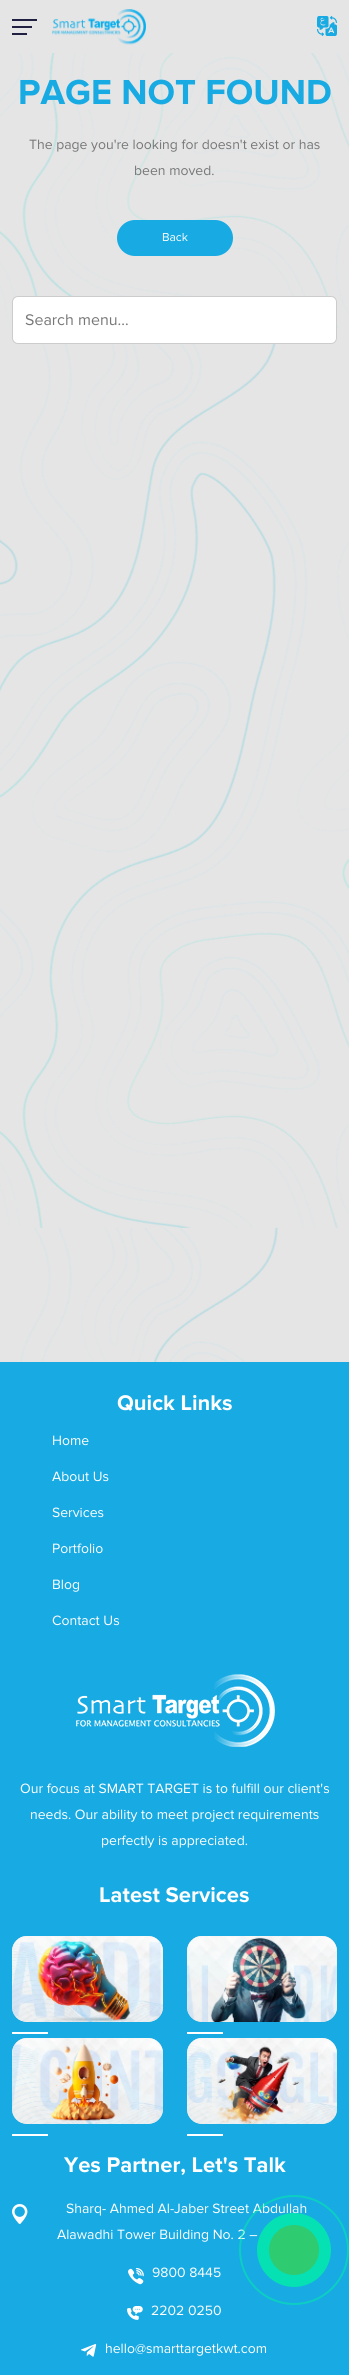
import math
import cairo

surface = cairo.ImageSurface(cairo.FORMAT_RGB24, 349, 2375)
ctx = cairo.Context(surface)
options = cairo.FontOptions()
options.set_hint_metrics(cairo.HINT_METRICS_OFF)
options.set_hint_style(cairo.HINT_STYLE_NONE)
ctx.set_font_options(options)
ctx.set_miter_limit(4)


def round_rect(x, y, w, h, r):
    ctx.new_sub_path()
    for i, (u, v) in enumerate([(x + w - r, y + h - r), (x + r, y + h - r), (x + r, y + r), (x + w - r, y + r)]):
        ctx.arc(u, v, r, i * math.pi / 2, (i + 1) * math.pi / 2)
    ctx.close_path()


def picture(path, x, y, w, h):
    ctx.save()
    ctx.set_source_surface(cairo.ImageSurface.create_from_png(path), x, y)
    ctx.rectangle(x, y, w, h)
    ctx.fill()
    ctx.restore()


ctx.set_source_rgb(0.898, 0.898, 0.898)
ctx.paint()
picture("img1.png", 0, 53, 349, 1309)
ctx.set_source_rgb(0.125, 0.125, 0.263)
ctx.rectangle(12, 19, 25, 2)
ctx.fill()
ctx.rectangle(12, 26, 20, 2)
ctx.fill()
ctx.rectangle(12, 33, 15, 2)
ctx.fill()
picture("img2.png", 52, 9, 94, 36)
picture("img3.png", 317, 16, 20, 20)
ctx.select_font_face("Proxima Nova", cairo.FONT_SLANT_NORMAL, cairo.FONT_WEIGHT_BOLD)
ctx.set_font_size(36)
ctx.set_source_rgb(0.094, 0.667, 0.89)
ctx.move_to(18, 104)
ctx.show_text("PAGE NOT FOUND")
ctx.select_font_face("Proxima Nova")
ctx.set_font_size(14)
ctx.set_source_rgb(0.467, 0.467, 0.467)
ctx.move_to(29, 149)
ctx.show_text("The page you're looking for doesn't exist or has")
ctx.move_to(134, 175)
ctx.show_text("been moved.")
ctx.set_source_rgb(0.094, 0.667, 0.89)
round_rect(117, 220, 116, 36, 18)
ctx.fill()
ctx.set_font_size(12)
ctx.set_source_rgb(1, 1, 1)
ctx.move_to(162, 241)
ctx.show_text("Back")
round_rect(12.5, 296.5, 324, 47, 5.5)
ctx.fill_preserve()
ctx.set_source_rgb(0.8, 0.8, 0.8)
ctx.set_line_width(1)
ctx.stroke()
ctx.set_font_size(16)
ctx.set_source_rgb(0.467, 0.467, 0.467)
ctx.move_to(25, 325)
ctx.show_text("Search menu...")
ctx.set_source_rgb(0.094, 0.667, 0.89)
ctx.rectangle(0, 1362, 349, 1013)
ctx.fill()
ctx.select_font_face("Proxima Nova", cairo.FONT_SLANT_NORMAL, cairo.FONT_WEIGHT_BOLD)
ctx.set_font_size(22)
ctx.set_source_rgb(1, 1, 1)
ctx.move_to(117, 1410)
ctx.show_text("Quick Links")
ctx.select_font_face("Proxima Nova")
ctx.set_font_size(14)
ctx.move_to(52, 1445)
ctx.show_text("Home")
ctx.move_to(52, 1481)
ctx.show_text("About Us")
ctx.move_to(52, 1517)
ctx.show_text("Services")
ctx.move_to(52, 1553)
ctx.show_text("Portfolio")
ctx.move_to(52, 1589)
ctx.show_text("Blog")
ctx.move_to(52, 1625)
ctx.show_text("Contact Us")
picture("img4.png", 76, 1674, 199, 73)
ctx.move_to(20, 1793)
ctx.show_text("Our focus at SMART TARGET is to fulfill our client's")
ctx.move_to(30, 1819)
ctx.show_text("needs. Our ability to meet project requirements")
ctx.move_to(101, 1845)
ctx.show_text("perfectly is appreciated.")
ctx.select_font_face("Proxima Nova", cairo.FONT_SLANT_NORMAL, cairo.FONT_WEIGHT_BOLD)
ctx.set_font_size(22)
ctx.move_to(99, 1902)
ctx.show_text("Latest Services")
ctx.set_source_rgb(0.851, 0.851, 0.851)
round_rect(12, 1936, 151, 86, 15)
ctx.fill()
picture("img5.png", 12, 1936, 151, 86)
ctx.set_source_rgb(1, 1, 1)
ctx.rectangle(12, 2032, 36, 2)
ctx.fill()
ctx.set_source_rgb(0.851, 0.851, 0.851)
round_rect(187, 1936, 150, 86, 15)
ctx.fill()
picture("img6.png", 187, 1936, 150, 86)
ctx.set_source_rgb(1, 1, 1)
ctx.rectangle(187, 2032, 36, 2)
ctx.fill()
ctx.set_source_rgb(0.851, 0.851, 0.851)
round_rect(12, 2038, 151, 86, 15)
ctx.fill()
picture("img7.png", 12, 2038, 151, 86)
ctx.set_source_rgb(1, 1, 1)
ctx.rectangle(12, 2134, 36, 2)
ctx.fill()
ctx.set_source_rgb(0.851, 0.851, 0.851)
round_rect(187, 2038, 150, 86, 15)
ctx.fill()
picture("img8.png", 187, 2038, 150, 86)
ctx.set_source_rgb(1, 1, 1)
ctx.rectangle(187, 2134, 36, 2)
ctx.fill()
ctx.move_to(64, 2172)
ctx.show_text("Yes Partner, Let's Talk")
picture("img9.png", 12, 2204, 16, 20)
ctx.select_font_face("Proxima Nova")
ctx.set_font_size(14)
ctx.move_to(66, 2213)
ctx.show_text("Sharq- Ahmed Al-Jaber Street Abdullah")
ctx.move_to(57, 2239)
ctx.show_text("Alawadhi Tower Building No. 2 –")
picture("img10.png", 128, 2268, 16, 17)
ctx.move_to(152, 2277)
ctx.show_text("9800 8445")
picture("img11.png", 127, 2306, 16, 14)
ctx.move_to(151, 2315)
ctx.show_text("2202 0250")
picture("img12.png", 81, 2344, 16, 13)
ctx.move_to(105, 2353)
ctx.show_text("hello@smarttargetkwt.com")
ctx.new_path()
ctx.arc(294, 2250, 54, 0, 2 * math.pi)
ctx.set_source_rgba(0, 0.949, 0.643, 0.5)
ctx.set_line_width(2)
ctx.stroke()
ctx.set_source_rgba(0, 0.949, 0.643, 0.75)
ctx.arc(294, 2250, 37, 0, 2 * math.pi)
ctx.fill()
ctx.set_source_rgb(0.18, 0.796, 0.443)
ctx.arc(294, 2250, 25, 0, 2 * math.pi)
ctx.fill()
surface.write_to_png("page.png")
